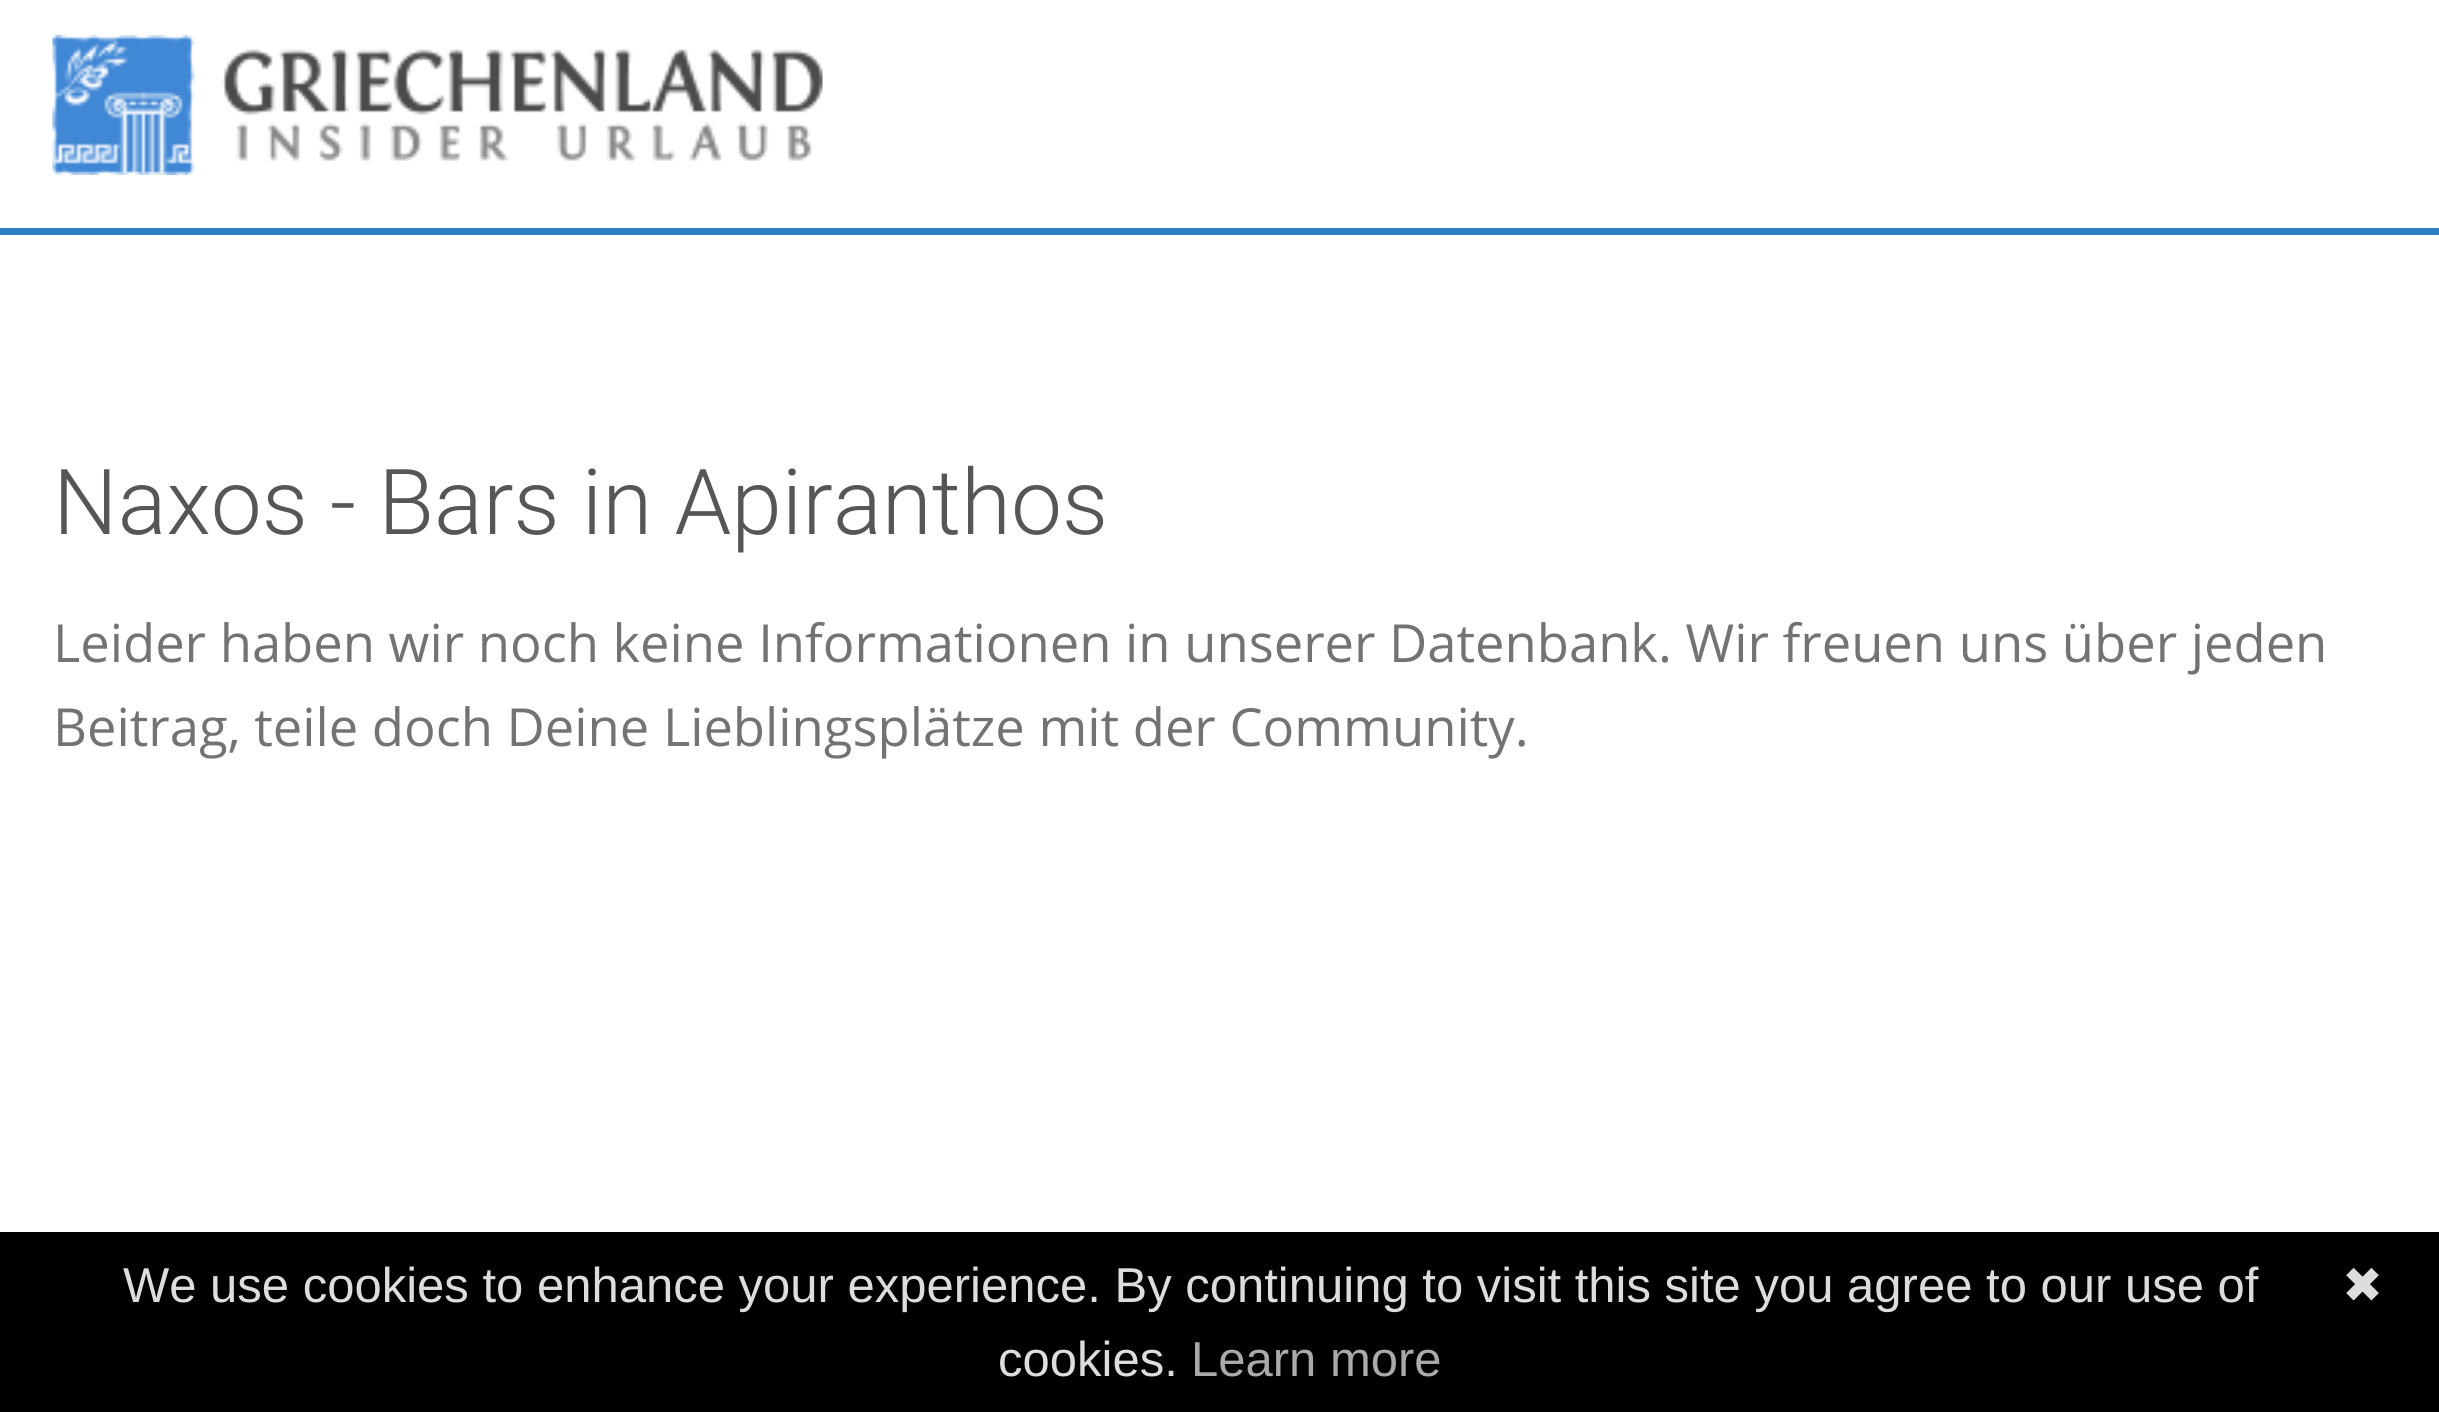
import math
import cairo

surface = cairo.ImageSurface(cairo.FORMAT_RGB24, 2439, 1412)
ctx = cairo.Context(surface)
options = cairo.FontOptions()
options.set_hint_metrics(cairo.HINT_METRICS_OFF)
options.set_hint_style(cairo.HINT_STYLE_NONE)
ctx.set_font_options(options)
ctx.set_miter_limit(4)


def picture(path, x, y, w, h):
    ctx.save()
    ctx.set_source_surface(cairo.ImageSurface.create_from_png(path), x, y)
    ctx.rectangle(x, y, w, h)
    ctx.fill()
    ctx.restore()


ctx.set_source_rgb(1, 1, 1)
ctx.paint()
ctx.set_source_rgb(0.192, 0.498, 0.765)
ctx.rectangle(0, 228, 2439, 7)
ctx.fill()
picture("img1.png", 52, 35, 771, 140)
ctx.select_font_face("Roboto Light")
ctx.set_font_size(91)
ctx.set_source_rgb(0.337, 0.337, 0.337)
ctx.move_to(53, 534)
ctx.show_text("Naxos - Bars in Apiranthos")
ctx.select_font_face("Open Sans")
ctx.set_font_size(52.5)
ctx.set_source_rgb(0.451, 0.451, 0.451)
ctx.move_to(53, 662)
ctx.show_text("Leider haben wir noch keine Informationen in unserer Datenbank. Wir freuen uns über jeden")
ctx.move_to(53, 746)
ctx.show_text("Beitrag, teile doch Deine Lieblingsplätze mit der Community.")
ctx.set_source_rgb(0, 0, 0)
ctx.rectangle(0, 1232, 2439, 180)
ctx.fill()
ctx.select_font_face("Liberation Sans")
ctx.set_font_size(49)
ctx.set_source_rgb(0.867, 0.867, 0.867)
ctx.move_to(123, 1302)
ctx.show_text("We use cookies to enhance your experience. By continuing to visit this site you agree to our use of")
ctx.select_font_face("DejaVu Sans")
ctx.move_to(2342, 1302)
ctx.show_text("✖")
ctx.select_font_face("Liberation Sans")
ctx.move_to(998, 1376)
ctx.show_text("cookies.")
ctx.set_source_rgb(0.667, 0.667, 0.667)
ctx.move_to(1191, 1376)
ctx.show_text("Learn more")
surface.write_to_png("page.png")
